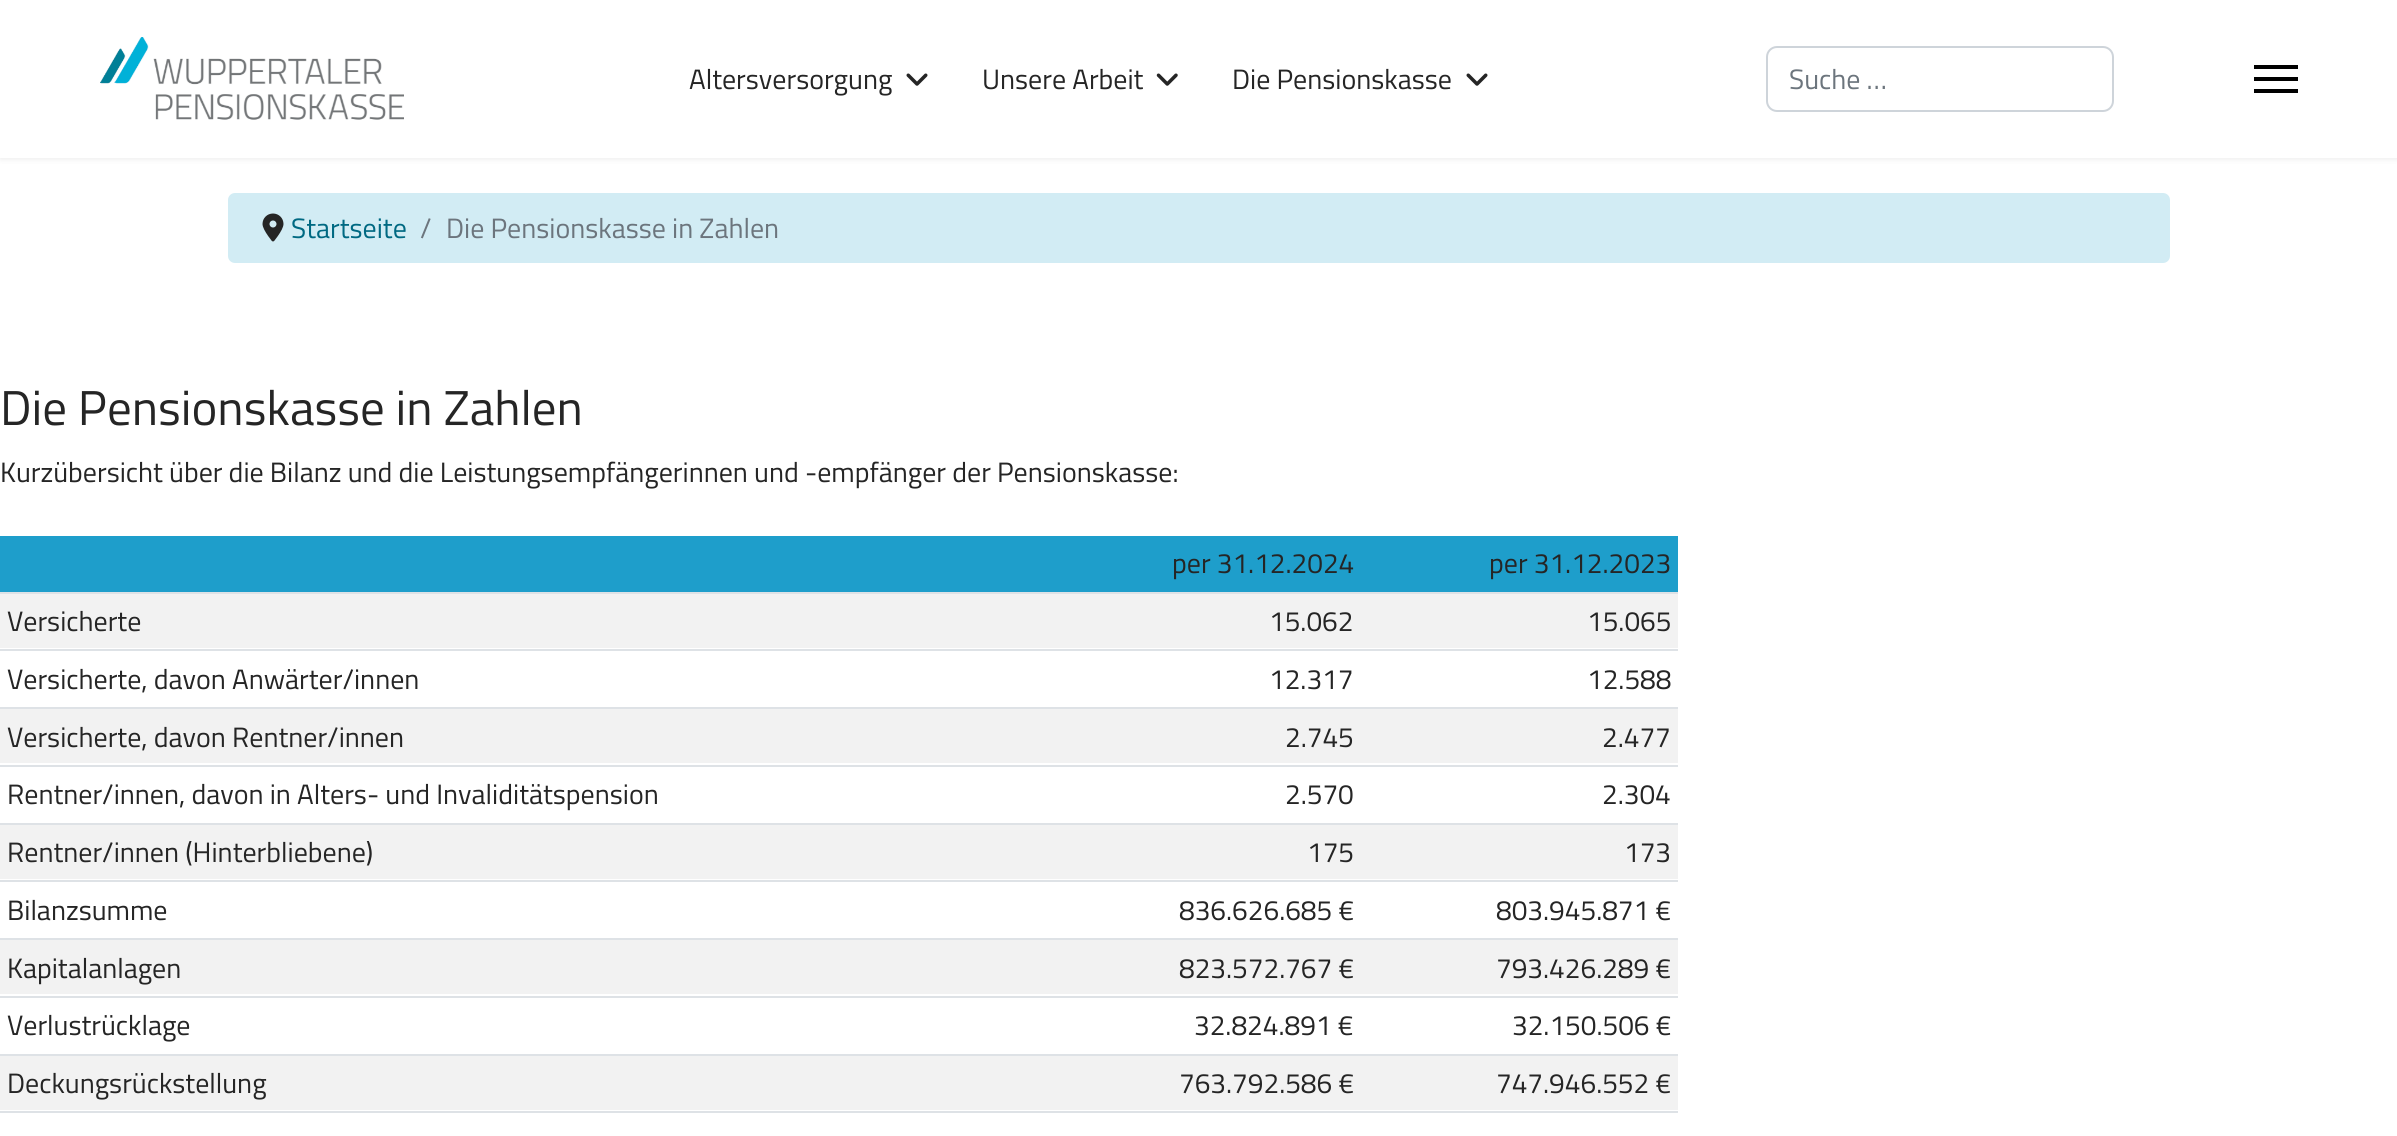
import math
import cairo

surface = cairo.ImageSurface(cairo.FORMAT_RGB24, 2397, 1136)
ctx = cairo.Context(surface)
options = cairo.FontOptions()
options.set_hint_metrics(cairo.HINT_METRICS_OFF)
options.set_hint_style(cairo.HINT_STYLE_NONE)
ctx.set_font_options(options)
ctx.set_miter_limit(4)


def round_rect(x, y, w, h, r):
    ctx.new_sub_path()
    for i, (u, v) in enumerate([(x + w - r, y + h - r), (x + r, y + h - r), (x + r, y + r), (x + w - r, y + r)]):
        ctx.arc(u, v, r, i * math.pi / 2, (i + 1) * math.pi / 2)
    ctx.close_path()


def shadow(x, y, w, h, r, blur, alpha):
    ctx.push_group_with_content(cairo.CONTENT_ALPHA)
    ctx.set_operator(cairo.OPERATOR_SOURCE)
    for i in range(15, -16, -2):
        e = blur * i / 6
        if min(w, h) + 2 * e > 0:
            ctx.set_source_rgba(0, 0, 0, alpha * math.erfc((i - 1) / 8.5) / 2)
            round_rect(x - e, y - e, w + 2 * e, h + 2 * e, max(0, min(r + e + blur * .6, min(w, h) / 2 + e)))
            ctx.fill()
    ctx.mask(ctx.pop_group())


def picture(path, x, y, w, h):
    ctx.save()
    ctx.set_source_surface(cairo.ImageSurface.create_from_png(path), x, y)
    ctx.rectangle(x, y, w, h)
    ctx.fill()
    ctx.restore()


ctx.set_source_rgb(1, 1, 1)
ctx.paint()
ctx.set_source_rgb(0, 0, 0)
shadow(0, 0, 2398, 158, 0, 3.5, 0.1)
ctx.set_source_rgb(1, 1, 1)
ctx.rectangle(0, 0, 2397, 158)
ctx.fill()
picture("img1.png", 100, 37, 304, 83)
ctx.select_font_face("Titillium Web")
ctx.set_font_size(28)
ctx.set_source_rgb(0.145, 0.145, 0.145)
ctx.move_to(689, 89)
ctx.show_text("Altersversorgung")
picture("img2.png", 906, 73, 22, 13)
ctx.move_to(982, 89)
ctx.show_text("Unsere Arbeit")
picture("img3.png", 1156, 73, 22, 13)
ctx.move_to(1232, 89)
ctx.show_text("Die Pensionskasse")
picture("img2.png", 1466, 73, 22, 13)
round_rect(1767, 47, 346, 64, 10)
ctx.set_source_rgb(0.808, 0.831, 0.855)
ctx.stroke()
ctx.set_source_rgb(0.424, 0.459, 0.49)
ctx.move_to(1789, 89)
ctx.show_text("Suche …")
ctx.set_source_rgb(0, 0, 0)
ctx.rectangle(2254, 65, 44, 4)
ctx.fill()
ctx.rectangle(2254, 77, 44, 4)
ctx.fill()
ctx.rectangle(2254, 89, 44, 4)
ctx.fill()
ctx.set_source_rgb(0.824, 0.922, 0.957)
round_rect(228, 193, 1942, 70, 7)
ctx.fill()
picture("img4.png", 262, 213, 22, 29)
ctx.set_source_rgb(0, 0.412, 0.51)
ctx.move_to(291, 238)
ctx.show_text("Startseite")
ctx.set_source_rgb(0.424, 0.459, 0.49)
ctx.move_to(420, 238)
ctx.show_text("/")
ctx.move_to(446, 238)
ctx.show_text("Die Pensionskasse in Zahlen")
ctx.set_font_size(49)
ctx.set_source_rgb(0.145, 0.145, 0.145)
ctx.move_to(0, 425)
ctx.show_text("Die Pensionskasse in Zahlen")
ctx.set_font_size(28)
ctx.move_to(0, 482)
ctx.show_text("Kurzübersicht über die Bilanz und die Leistungsempfängerinnen und -empfänger der Pensionskasse:")
ctx.set_source_rgb(0.118, 0.62, 0.796)
ctx.rectangle(0, 536, 1678, 56)
ctx.fill()
ctx.set_source_rgb(0.145, 0.145, 0.145)
ctx.move_to(1172, 573)
ctx.show_text("per 31.12.2024")
ctx.set_source_rgb(0.871, 0.886, 0.902)
ctx.rectangle(0, 592, 1678, 2)
ctx.fill()
ctx.set_source_rgb(0.145, 0.145, 0.145)
ctx.move_to(1489, 573)
ctx.show_text("per 31.12.2023")
ctx.set_source_rgb(0.949, 0.949, 0.949)
ctx.rectangle(0, 594, 1678, 54)
ctx.fill()
ctx.set_source_rgb(0.145, 0.145, 0.145)
ctx.move_to(7, 631)
ctx.show_text("Versicherte")
ctx.move_to(1269, 631)
ctx.show_text("15.062")
ctx.set_source_rgb(0.871, 0.886, 0.902)
ctx.rectangle(0, 649, 1678, 2)
ctx.fill()
ctx.set_source_rgb(0.145, 0.145, 0.145)
ctx.move_to(1587, 631)
ctx.show_text("15.065")
ctx.move_to(7, 689)
ctx.show_text("Versicherte, davon Anwärter/innen")
ctx.move_to(1269, 689)
ctx.show_text("12.317")
ctx.set_source_rgb(0.871, 0.886, 0.902)
ctx.rectangle(0, 707, 1678, 2)
ctx.fill()
ctx.set_source_rgb(0.145, 0.145, 0.145)
ctx.move_to(1587, 689)
ctx.show_text("12.588")
ctx.set_source_rgb(0.949, 0.949, 0.949)
ctx.rectangle(0, 709, 1678, 54)
ctx.fill()
ctx.set_source_rgb(0.145, 0.145, 0.145)
ctx.move_to(7, 747)
ctx.show_text("Versicherte, davon Rentner/innen")
ctx.move_to(1285, 747)
ctx.show_text("2.745")
ctx.set_source_rgb(0.871, 0.886, 0.902)
ctx.rectangle(0, 765, 1678, 2)
ctx.fill()
ctx.set_source_rgb(0.145, 0.145, 0.145)
ctx.move_to(1602, 747)
ctx.show_text("2.477")
ctx.move_to(7, 804)
ctx.show_text("Rentner/innen, davon in Alters- und Invaliditätspension")
ctx.move_to(1285, 804)
ctx.show_text("2.570")
ctx.set_source_rgb(0.871, 0.886, 0.902)
ctx.rectangle(0, 823, 1678, 2)
ctx.fill()
ctx.set_source_rgb(0.145, 0.145, 0.145)
ctx.move_to(1602, 804)
ctx.show_text("2.304")
ctx.set_source_rgb(0.949, 0.949, 0.949)
ctx.rectangle(0, 825, 1678, 54)
ctx.fill()
ctx.set_source_rgb(0.145, 0.145, 0.145)
ctx.move_to(7, 862)
ctx.show_text("Rentner/innen (Hinterbliebene)")
ctx.move_to(1307, 862)
ctx.show_text("175")
ctx.set_source_rgb(0.871, 0.886, 0.902)
ctx.rectangle(0, 880, 1678, 2)
ctx.fill()
ctx.set_source_rgb(0.145, 0.145, 0.145)
ctx.move_to(1624, 862)
ctx.show_text("173")
ctx.move_to(7, 920)
ctx.show_text("Bilanzsumme")
ctx.move_to(1179, 920)
ctx.show_text("836.626.685 €")
ctx.set_source_rgb(0.871, 0.886, 0.902)
ctx.rectangle(0, 938, 1678, 2)
ctx.fill()
ctx.set_source_rgb(0.145, 0.145, 0.145)
ctx.move_to(1496, 920)
ctx.show_text("803.945.871 €")
ctx.set_source_rgb(0.949, 0.949, 0.949)
ctx.rectangle(0, 940, 1678, 54)
ctx.fill()
ctx.set_source_rgb(0.145, 0.145, 0.145)
ctx.move_to(7, 978)
ctx.show_text("Kapitalanlagen")
ctx.move_to(1179, 978)
ctx.show_text("823.572.767 €")
ctx.set_source_rgb(0.871, 0.886, 0.902)
ctx.rectangle(0, 996, 1678, 2)
ctx.fill()
ctx.set_source_rgb(0.145, 0.145, 0.145)
ctx.move_to(1496, 978)
ctx.show_text("793.426.289 €")
ctx.move_to(7, 1035)
ctx.show_text("Verlustrücklage")
ctx.move_to(1194, 1035)
ctx.show_text("32.824.891 €")
ctx.set_source_rgb(0.871, 0.886, 0.902)
ctx.rectangle(0, 1054, 1678, 2)
ctx.fill()
ctx.set_source_rgb(0.145, 0.145, 0.145)
ctx.move_to(1512, 1035)
ctx.show_text("32.150.506 €")
ctx.set_source_rgb(0.949, 0.949, 0.949)
ctx.rectangle(0, 1056, 1678, 54)
ctx.fill()
ctx.set_source_rgb(0.145, 0.145, 0.145)
ctx.move_to(7, 1093)
ctx.show_text("Deckungsrückstellung")
ctx.move_to(1179, 1093)
ctx.show_text("763.792.586 €")
ctx.set_source_rgb(0.871, 0.886, 0.902)
ctx.rectangle(0, 1111, 1678, 2)
ctx.fill()
ctx.set_source_rgb(0.145, 0.145, 0.145)
ctx.move_to(1496, 1093)
ctx.show_text("747.946.552 €")
surface.write_to_png("page.png")
